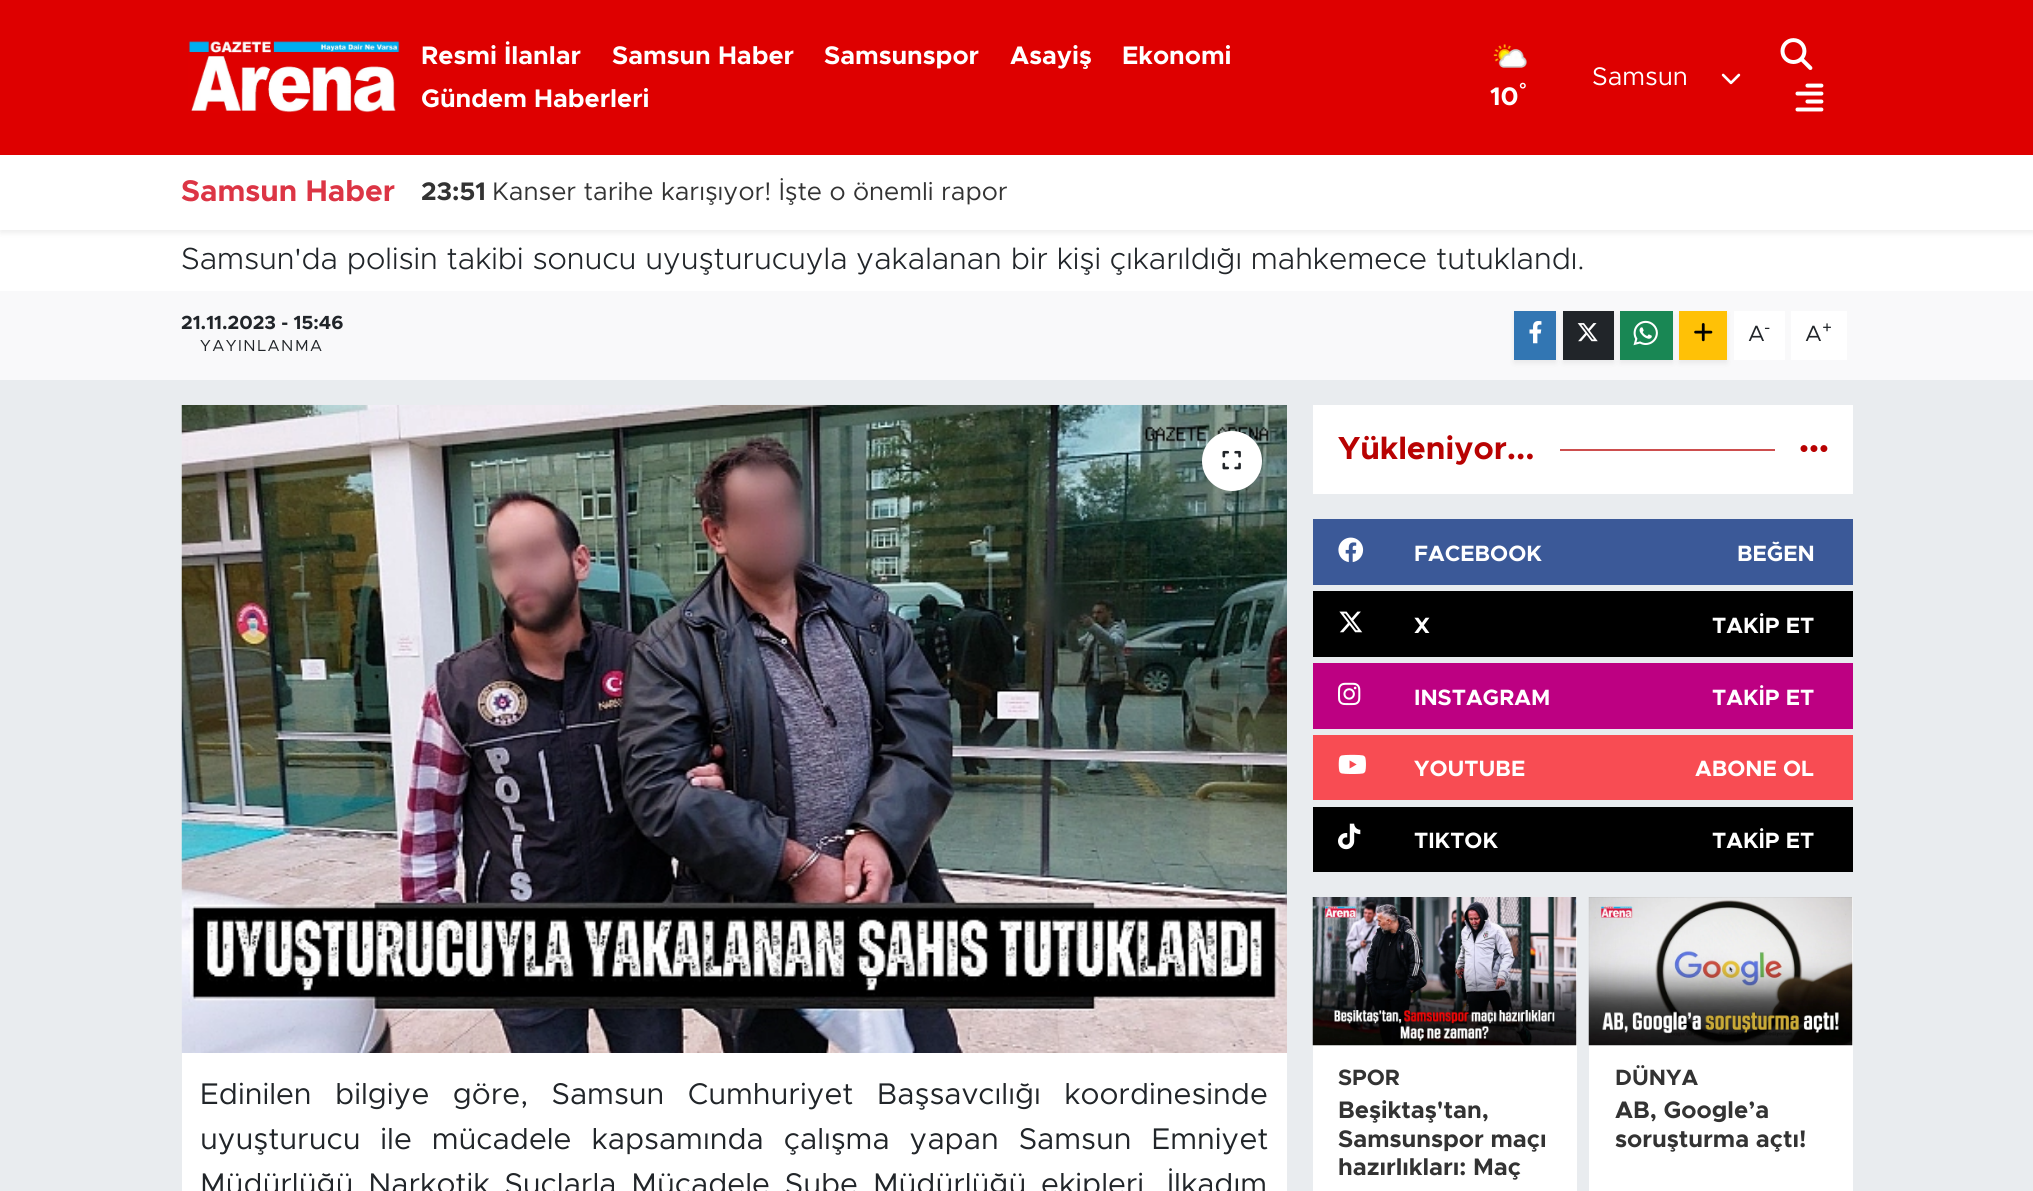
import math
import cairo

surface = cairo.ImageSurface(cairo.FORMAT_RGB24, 2033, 1191)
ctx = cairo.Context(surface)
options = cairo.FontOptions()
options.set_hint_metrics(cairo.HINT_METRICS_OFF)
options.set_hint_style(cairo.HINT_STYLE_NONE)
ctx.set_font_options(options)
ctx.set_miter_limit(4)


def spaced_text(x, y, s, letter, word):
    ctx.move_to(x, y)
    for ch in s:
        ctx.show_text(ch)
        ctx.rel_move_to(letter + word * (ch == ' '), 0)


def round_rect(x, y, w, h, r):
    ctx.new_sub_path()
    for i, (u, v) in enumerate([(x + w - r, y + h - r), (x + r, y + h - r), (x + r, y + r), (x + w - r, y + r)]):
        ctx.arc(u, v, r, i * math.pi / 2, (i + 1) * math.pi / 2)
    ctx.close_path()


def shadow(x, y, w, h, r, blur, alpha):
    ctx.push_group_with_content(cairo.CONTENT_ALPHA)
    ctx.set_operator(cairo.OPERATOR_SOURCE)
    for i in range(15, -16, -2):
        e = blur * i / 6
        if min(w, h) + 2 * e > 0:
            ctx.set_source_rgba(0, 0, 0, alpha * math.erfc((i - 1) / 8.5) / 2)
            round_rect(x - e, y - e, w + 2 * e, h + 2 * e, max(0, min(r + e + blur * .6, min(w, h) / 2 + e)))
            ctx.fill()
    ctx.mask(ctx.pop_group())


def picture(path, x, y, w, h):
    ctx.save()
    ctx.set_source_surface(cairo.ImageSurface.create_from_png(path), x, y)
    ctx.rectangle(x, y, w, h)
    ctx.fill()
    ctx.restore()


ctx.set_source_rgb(0.914, 0.925, 0.937)
ctx.paint()
ctx.set_source_rgb(1, 1, 1)
ctx.rectangle(0, 230, 2033, 61)
ctx.fill()
ctx.set_source_rgb(0, 0, 0)
shadow(0, 158, 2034, 75, 0, 3, 0.07)
ctx.set_source_rgb(0.871, 0, 0)
ctx.rectangle(0, 0, 2033, 155)
ctx.fill()
picture("img1.png", 188, 41, 212, 72)
ctx.select_font_face("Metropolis", cairo.FONT_SLANT_NORMAL, cairo.FONT_WEIGHT_BOLD)
ctx.set_font_size(25.5)
ctx.set_source_rgb(1, 1, 1)
ctx.move_to(421, 64)
ctx.show_text("Resmi İlanlar")
ctx.move_to(612, 64)
ctx.show_text("Samsun Haber")
ctx.move_to(824, 64)
ctx.show_text("Samsunspor")
ctx.move_to(1010, 64)
ctx.show_text("Asayiş")
ctx.move_to(1122, 64)
ctx.show_text("Ekonomi")
ctx.move_to(421, 107)
ctx.show_text("Gündem Haberleri")
ctx.select_font_face("Metropolis")
ctx.move_to(1592, 85)
ctx.show_text("Samsun")
picture("img2.png", 1721, 73, 20, 12)
picture("img3.png", 1493, 44, 34, 24)
ctx.select_font_face("Liberation Sans", cairo.FONT_SLANT_NORMAL, cairo.FONT_WEIGHT_BOLD)
ctx.set_font_size(19.1)
ctx.move_to(1519, 96)
ctx.show_text("°")
ctx.select_font_face("Metropolis", cairo.FONT_SLANT_NORMAL, cairo.FONT_WEIGHT_BOLD)
ctx.set_font_size(25.5)
ctx.move_to(1490, 105)
ctx.show_text("10")
picture("img4.png", 1780, 38, 33, 32)
picture("img5.png", 1795, 83, 29, 29)
ctx.rectangle(0, 155, 2033, 75)
ctx.fill()
ctx.set_font_size(30)
ctx.set_source_rgb(0.863, 0.208, 0.271)
ctx.move_to(181, 201)
ctx.show_text("Samsun Haber")
ctx.set_font_size(25.5)
ctx.set_source_rgb(0.2, 0.2, 0.2)
ctx.move_to(421, 200)
ctx.show_text("23:51")
ctx.select_font_face("Metropolis")
ctx.move_to(492, 200)
ctx.show_text("Kanser tarihe karışıyor! İşte o önemli rapor")
ctx.select_font_face("Metropolis Light")
ctx.set_font_size(30.6)
ctx.set_source_rgb(0.129, 0.145, 0.161)
ctx.move_to(181, 269)
ctx.show_text("Samsun'da polisin takibi sonucu uyuşturucuyla yakalanan bir kişi çıkarıldığı mahkemece tutuklandı.")
ctx.set_source_rgb(0.973, 0.976, 0.98)
ctx.rectangle(0, 291, 2033, 89)
ctx.fill()
ctx.select_font_face("Metropolis", cairo.FONT_SLANT_NORMAL, cairo.FONT_WEIGHT_BOLD)
ctx.set_font_size(19.1)
ctx.set_source_rgb(0.129, 0.145, 0.161)
ctx.move_to(181, 329)
ctx.show_text("21.11.2023 - 15:46")
ctx.select_font_face("Metropolis")
ctx.set_font_size(16)
spaced_text(200, 351, "YAYINLANMA", 1.5, 0)
ctx.set_source_rgb(0, 0, 0)
shadow(1514, 314, 42, 49, 0, 3, 0.07)
ctx.set_source_rgb(0.196, 0.463, 0.702)
ctx.rectangle(1514, 311, 42, 49)
ctx.fill()
picture("img6.png", 1529, 321, 13, 23)
ctx.set_source_rgb(0, 0, 0)
shadow(1563, 314, 51, 49, 0, 3, 0.07)
ctx.set_source_rgb(0.129, 0.145, 0.161)
ctx.rectangle(1563, 311, 51, 49)
ctx.fill()
picture("img7.png", 1577, 323, 21, 19)
ctx.set_source_rgb(0, 0, 0)
shadow(1620, 314, 53, 49, 0, 3, 0.07)
ctx.set_source_rgb(0.098, 0.529, 0.329)
ctx.rectangle(1620, 311, 53, 49)
ctx.fill()
picture("img8.png", 1633, 320, 25, 26)
ctx.set_source_rgb(1, 1, 1)
ctx.rectangle(1734, 311, 51, 49)
ctx.fill()
ctx.set_source_rgb(0, 0, 0)
shadow(1679, 314, 48, 49, 0, 3, 0.07)
ctx.set_source_rgb(1, 0.757, 0.027)
ctx.rectangle(1679, 311, 48, 49)
ctx.fill()
picture("img9.png", 1694, 323, 19, 19)
ctx.set_font_size(22.25)
ctx.set_source_rgb(0.129, 0.145, 0.161)
ctx.move_to(1748, 341)
ctx.show_text("A")
ctx.set_font_size(17)
ctx.move_to(1764, 333)
ctx.show_text("-")
ctx.set_source_rgb(1, 1, 1)
ctx.rectangle(1791, 311, 56, 49)
ctx.fill()
ctx.set_font_size(22.25)
ctx.set_source_rgb(0.129, 0.145, 0.161)
ctx.move_to(1805, 341)
ctx.show_text("A")
ctx.set_font_size(17)
ctx.move_to(1822, 333)
ctx.show_text("+")
picture("img10.png", 181, 405, 1106, 648)
ctx.set_source_rgb(1, 1, 1)
ctx.arc(1232, 461, 30, 0, 2 * math.pi)
ctx.fill()
picture("img11.png", 1222, 450, 19, 20)
ctx.rectangle(182, 1053, 1105, 138)
ctx.fill()
ctx.set_font_size(30)
ctx.set_source_rgb(0.129, 0.145, 0.161)
spaced_text(200, 1104, "Edinilen bilgiye göre, Samsun Cumhuriyet Başsavcılığı koordinesinde", 0, 14.75)
spaced_text(200, 1149, "uyuşturucu ile mücadele kapsamında çalışma yapan Samsun Emniyet", 0, 11.25)
spaced_text(200, 1194, "Müdürlüğü Narkotik Suçlarla Mücadele Şube Müdürlüğü ekipleri, İlkadım", 0, 6.25)
ctx.set_source_rgb(1, 1, 1)
ctx.rectangle(1313, 405, 540, 89)
ctx.fill()
ctx.select_font_face("Metropolis", cairo.FONT_SLANT_NORMAL, cairo.FONT_WEIGHT_BOLD)
ctx.set_font_size(32)
ctx.set_source_rgb(0.722, 0.008, 0.008)
ctx.move_to(1338, 459)
ctx.show_text("Yükleniyor...")
ctx.set_source_rgb(0.804, 0.306, 0.306)
ctx.rectangle(1560, 449, 215, 2)
ctx.fill()
picture("img12.png", 1800, 445, 28, 7)
ctx.set_source_rgb(0.231, 0.349, 0.596)
ctx.rectangle(1313, 519, 540, 66)
ctx.fill()
picture("img13.png", 1338, 537, 26, 26)
ctx.set_font_size(22.25)
ctx.set_source_rgb(1, 1, 1)
ctx.move_to(1414, 561)
ctx.show_text("FACEBOOK")
ctx.move_to(1737, 561)
ctx.show_text("BEĞEN")
ctx.set_source_rgb(0, 0, 0)
ctx.rectangle(1313, 591, 540, 66)
ctx.fill()
picture("img14.png", 1339, 611, 24, 22)
ctx.set_source_rgb(1, 1, 1)
ctx.move_to(1414, 633)
ctx.show_text("X")
ctx.move_to(1712, 633)
ctx.show_text("TAKİP ET")
ctx.set_source_rgb(0.741, 0, 0.51)
ctx.rectangle(1313, 663, 540, 66)
ctx.fill()
picture("img15.png", 1338, 682, 23, 24)
ctx.set_source_rgb(1, 1, 1)
ctx.move_to(1414, 705)
ctx.show_text("INSTAGRAM")
ctx.move_to(1712, 705)
ctx.show_text("TAKİP ET")
ctx.set_source_rgb(0.969, 0.298, 0.325)
ctx.rectangle(1313, 735, 540, 65)
ctx.fill()
picture("img16.png", 1338, 754, 28, 20)
ctx.set_source_rgb(1, 1, 1)
ctx.move_to(1414, 776)
ctx.show_text("YOUTUBE")
ctx.move_to(1695, 776)
ctx.show_text("ABONE OL")
ctx.set_source_rgb(0, 0, 0)
ctx.rectangle(1313, 807, 540, 65)
ctx.fill()
picture("img17.png", 1338, 823, 23, 27)
ctx.set_source_rgb(1, 1, 1)
ctx.move_to(1414, 848)
ctx.show_text("TIKTOK")
ctx.move_to(1712, 848)
ctx.show_text("TAKİP ET")
ctx.rectangle(1313, 897, 264, 294)
ctx.fill()
picture("img18.png", 1312, 897, 265, 149)
ctx.set_source_rgb(0.2, 0.2, 0.2)
ctx.move_to(1338, 1085)
ctx.show_text("SPOR")
ctx.set_font_size(24)
ctx.move_to(1338, 1118)
ctx.show_text("Beşiktaş'tan,")
ctx.move_to(1338, 1147)
ctx.show_text("Samsunspor maçı")
ctx.move_to(1338, 1175)
ctx.show_text("hazırlıkları: Maç")
ctx.set_source_rgb(1, 1, 1)
ctx.rectangle(1589, 897, 264, 294)
ctx.fill()
picture("img19.png", 1588, 897, 265, 149)
ctx.set_font_size(22.25)
ctx.set_source_rgb(0.2, 0.2, 0.2)
ctx.move_to(1615, 1085)
ctx.show_text("DÜNYA")
ctx.set_font_size(24)
ctx.move_to(1615, 1118)
ctx.show_text("AB, Google’a")
ctx.move_to(1615, 1147)
ctx.show_text("soruşturma açtı!")
surface.write_to_png("page.png")
